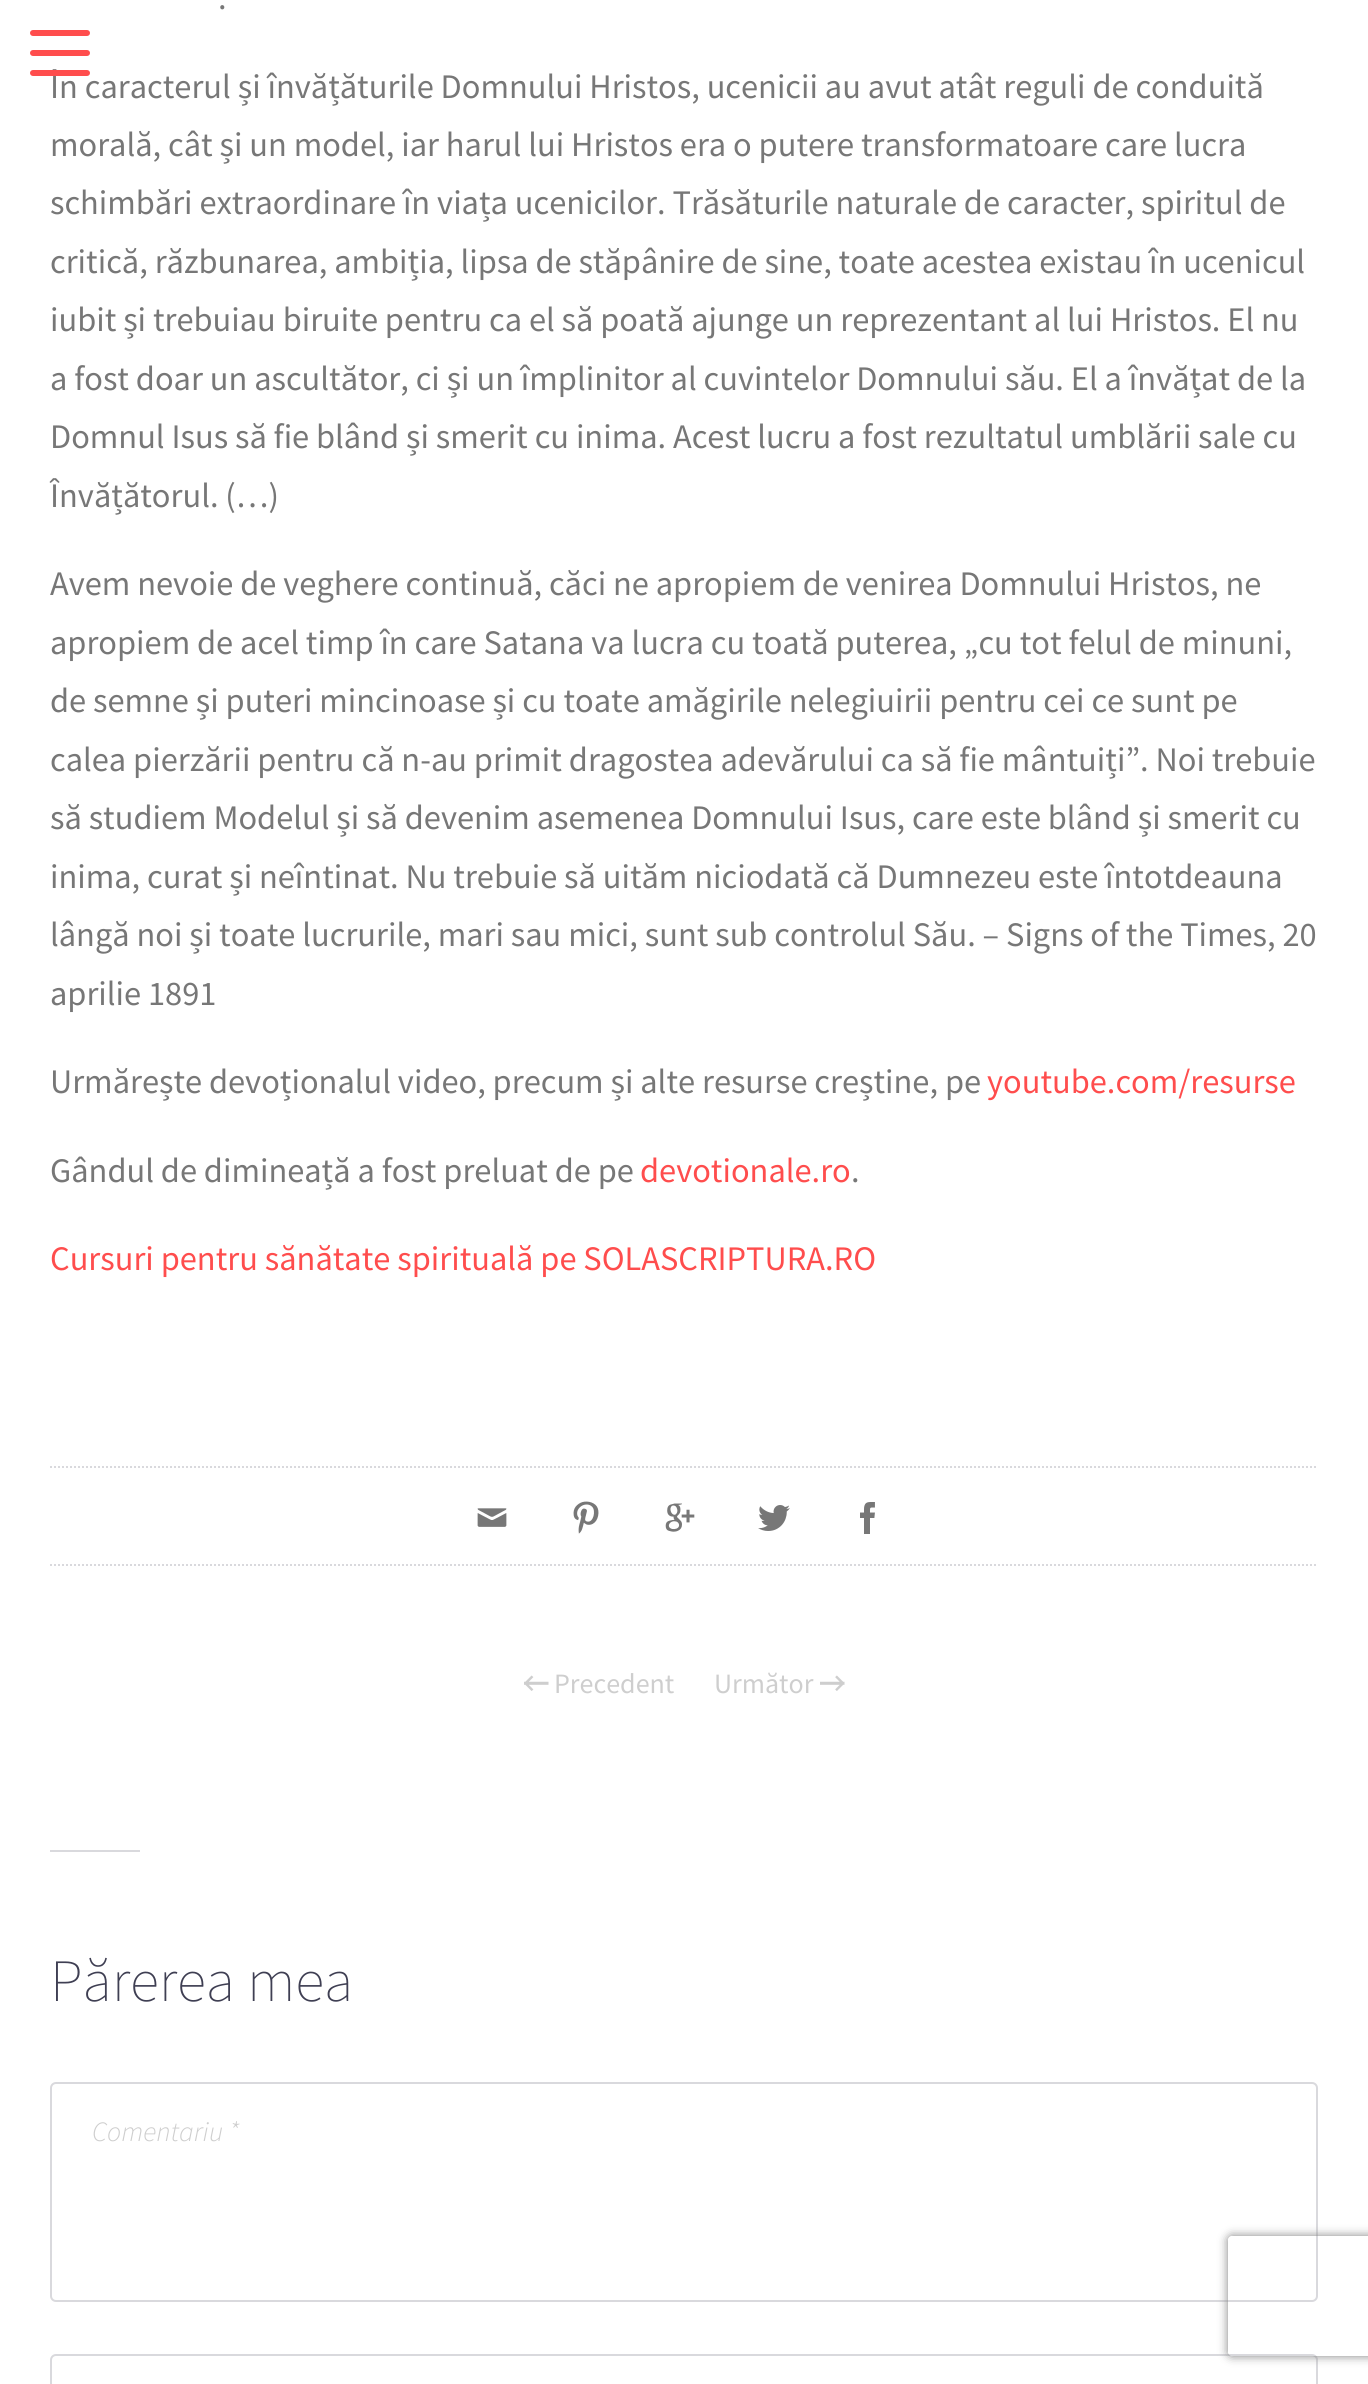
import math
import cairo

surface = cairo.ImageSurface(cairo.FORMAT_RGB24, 1368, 2384)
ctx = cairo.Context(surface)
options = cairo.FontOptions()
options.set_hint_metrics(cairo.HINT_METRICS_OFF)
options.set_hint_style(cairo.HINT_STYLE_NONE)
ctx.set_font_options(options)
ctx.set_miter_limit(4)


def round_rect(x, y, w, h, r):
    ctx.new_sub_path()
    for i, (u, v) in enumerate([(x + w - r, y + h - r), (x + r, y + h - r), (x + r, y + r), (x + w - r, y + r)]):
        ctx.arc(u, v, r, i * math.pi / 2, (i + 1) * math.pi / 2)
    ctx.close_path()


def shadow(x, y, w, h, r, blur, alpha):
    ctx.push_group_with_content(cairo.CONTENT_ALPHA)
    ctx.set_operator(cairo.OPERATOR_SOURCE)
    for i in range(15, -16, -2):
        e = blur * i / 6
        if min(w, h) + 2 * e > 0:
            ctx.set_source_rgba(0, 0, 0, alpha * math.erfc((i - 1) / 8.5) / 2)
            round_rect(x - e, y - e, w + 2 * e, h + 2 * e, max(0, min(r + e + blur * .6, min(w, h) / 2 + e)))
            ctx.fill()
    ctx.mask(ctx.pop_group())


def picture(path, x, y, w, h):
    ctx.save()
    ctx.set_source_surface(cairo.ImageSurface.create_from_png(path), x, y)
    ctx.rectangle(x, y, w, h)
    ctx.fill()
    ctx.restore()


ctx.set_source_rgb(1, 1, 1)
ctx.paint()
ctx.select_font_face("Source Sans Pro")
ctx.set_font_size(34.4)
ctx.set_source_rgb(0.467, 0.467, 0.467)
ctx.move_to(218, 9)
ctx.show_text(".")
ctx.move_to(50, 98)
ctx.show_text("În caracterul și învățăturile Domnului Hristos, ucenicii au avut atât reguli de conduită")
ctx.move_to(50, 156)
ctx.show_text("morală, cât și un model, iar harul lui Hristos era o putere transformatoare care lucra")
ctx.move_to(50, 214)
ctx.show_text("schimbări extraordinare în viața ucenicilor. Trăsăturile naturale de caracter, spiritul de")
ctx.move_to(50, 273)
ctx.show_text("critică, răzbunarea, ambiția, lipsa de stăpânire de sine, toate acestea existau în ucenicul")
ctx.move_to(50, 331)
ctx.show_text("iubit și trebuiau biruite pentru ca el să poată ajunge un reprezentant al lui Hristos. El nu")
ctx.move_to(50, 390)
ctx.show_text("a fost doar un ascultător, ci și un împlinitor al cuvintelor Domnului său. El a învățat de la")
ctx.move_to(50, 448)
ctx.show_text("Domnul Isus să fie blând și smerit cu inima. Acest lucru a fost rezultatul umblării sale cu")
ctx.move_to(50, 507)
ctx.show_text("Învățătorul. (…)")
ctx.move_to(50, 595)
ctx.show_text("Avem nevoie de veghere continuă, căci ne apropiem de venirea Domnului Hristos, ne")
ctx.move_to(50, 654)
ctx.show_text("apropiem de acel timp în care Satana va lucra cu toată puterea, „cu tot felul de minuni,")
ctx.move_to(50, 712)
ctx.show_text("de semne și puteri mincinoase și cu toate amăgirile nelegiuirii pentru cei ce sunt pe")
ctx.move_to(50, 771)
ctx.show_text("calea pierzării pentru că n-au primit dragostea adevărului ca să fie mântuiți”. Noi trebuie")
ctx.move_to(50, 829)
ctx.show_text("să studiem Modelul și să devenim asemenea Domnului Isus, care este blând și smerit cu")
ctx.move_to(50, 888)
ctx.show_text("inima, curat și neîntinat. Nu trebuie să uităm niciodată că Dumnezeu este întotdeauna")
ctx.move_to(50, 946)
ctx.show_text("lângă noi și toate lucrurile, mari sau mici, sunt sub controlul Său. – Signs of the Times, 20")
ctx.move_to(50, 1005)
ctx.show_text("aprilie 1891")
ctx.move_to(50, 1093)
ctx.show_text("Urmărește devoționalul video, precum și alte resurse creștine, pe")
ctx.set_source_rgb(1, 0.302, 0.302)
ctx.move_to(987, 1093)
ctx.show_text("youtube.com/resurse")
ctx.set_source_rgb(0.467, 0.467, 0.467)
ctx.move_to(50, 1182)
ctx.show_text("Gândul de dimineață a fost preluat de pe")
ctx.set_source_rgb(1, 0.302, 0.302)
ctx.move_to(640, 1182)
ctx.show_text("devotionale.ro")
ctx.set_source_rgb(0.467, 0.467, 0.467)
ctx.move_to(851, 1182)
ctx.show_text(".")
ctx.set_source_rgb(1, 0.302, 0.302)
ctx.move_to(50, 1270)
ctx.show_text("Cursuri pentru sănătate spirituală pe SOLASCRIPTURA.RO")
ctx.new_path()
ctx.move_to(50, 1467)
ctx.line_to(1318, 1467)
ctx.set_source_rgb(0.851, 0.851, 0.867)
ctx.set_dash([2, 2])
ctx.stroke()
picture("img1.png", 477, 1508, 30, 19)
picture("img2.png", 573, 1501, 26, 33)
picture("img3.png", 665, 1503, 30, 29)
picture("img4.png", 758, 1505, 32, 26)
picture("img5.png", 860, 1502, 15, 32)
ctx.new_path()
ctx.move_to(50, 1565)
ctx.line_to(1318, 1565)
ctx.stroke()
picture("img6.png", 524, 1675, 25, 16)
ctx.set_font_size(28)
ctx.set_source_rgb(0.808, 0.808, 0.808)
ctx.move_to(554, 1693)
ctx.show_text("Precedent")
ctx.move_to(714, 1693)
ctx.show_text("Următor")
picture("img7.png", 820, 1675, 25, 16)
ctx.set_source_rgb(0.851, 0.851, 0.867)
ctx.rectangle(50, 1850, 90, 2)
ctx.fill()
ctx.select_font_face("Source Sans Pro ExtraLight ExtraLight")
ctx.set_font_size(60)
ctx.set_source_rgb(0.247, 0.247, 0.325)
ctx.move_to(50, 2001)
ctx.show_text("Părerea mea")
round_rect(51, 2083, 1266, 218, 5)
ctx.set_source_rgb(0.851, 0.851, 0.867)
ctx.set_dash([])
ctx.stroke()
ctx.select_font_face("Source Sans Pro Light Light", cairo.FONT_SLANT_ITALIC)
ctx.set_font_size(28)
ctx.set_source_rgb(0.808, 0.808, 0.808)
ctx.move_to(92, 2141)
ctx.show_text("Comentariu *")
round_rect(51, 2355, 1266, 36, 5)
ctx.set_source_rgb(0.851, 0.851, 0.867)
ctx.stroke()
ctx.set_source_rgb(1, 0.302, 0.302)
round_rect(30, 50, 60, 6, 3)
ctx.fill()
round_rect(30, 30, 60, 6, 3)
ctx.fill()
round_rect(30, 70, 60, 6, 3)
ctx.fill()
ctx.save()
ctx.set_fill_rule(cairo.FILL_RULE_EVEN_ODD)
ctx.new_path()
ctx.move_to(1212, 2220)
ctx.line_to(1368, 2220)
ctx.line_to(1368, 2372)
ctx.line_to(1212, 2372)
ctx.close_path()
ctx.move_to(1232, 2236)
ctx.line_to(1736, 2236)
ctx.curve_to(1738, 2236, 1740, 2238, 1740, 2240)
ctx.line_to(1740, 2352)
ctx.curve_to(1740, 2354, 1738, 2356, 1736, 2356)
ctx.line_to(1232, 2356)
ctx.curve_to(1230, 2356, 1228, 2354, 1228, 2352)
ctx.line_to(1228, 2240)
ctx.curve_to(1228, 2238, 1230, 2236, 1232, 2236)
ctx.close_path()
ctx.clip()
ctx.set_source_rgb(0.502, 0.502, 0.502)
shadow(1228, 2236, 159, 120, 4, 5, 1)
ctx.restore()
surface.write_to_png("page.png")
